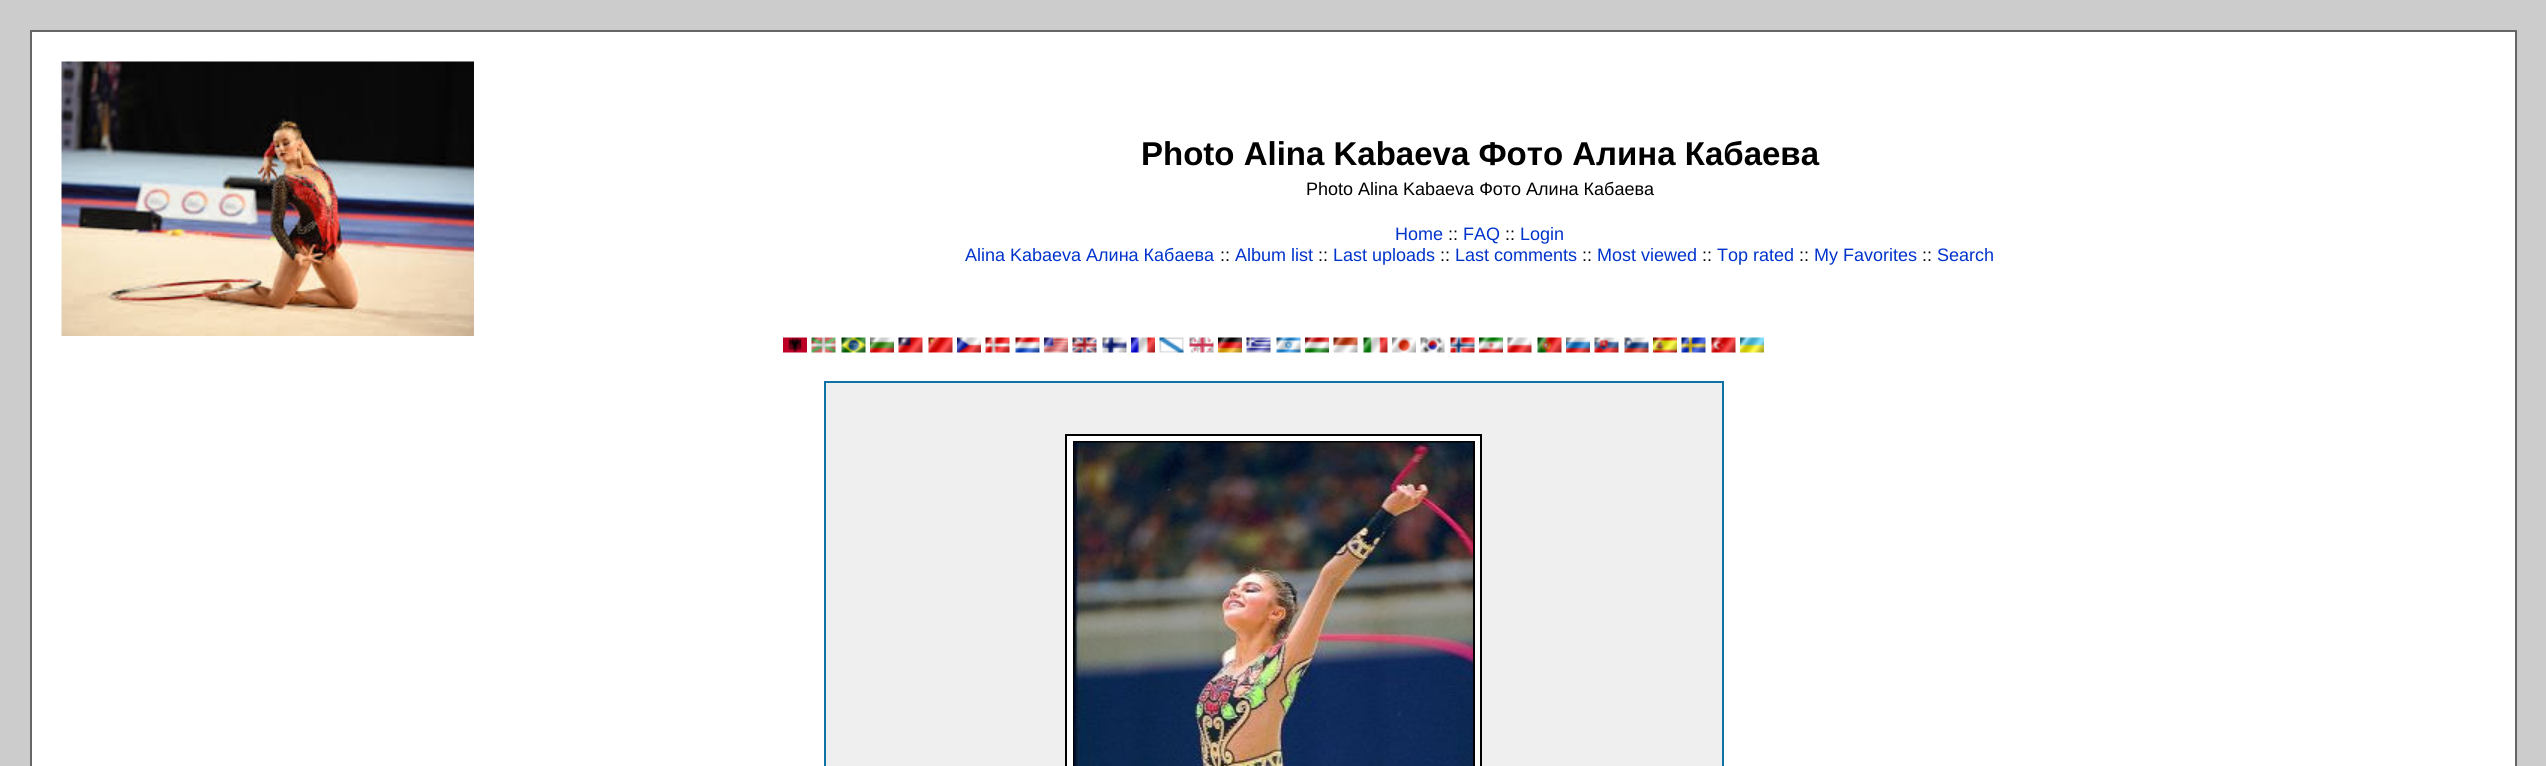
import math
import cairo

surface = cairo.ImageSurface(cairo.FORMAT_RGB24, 2546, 766)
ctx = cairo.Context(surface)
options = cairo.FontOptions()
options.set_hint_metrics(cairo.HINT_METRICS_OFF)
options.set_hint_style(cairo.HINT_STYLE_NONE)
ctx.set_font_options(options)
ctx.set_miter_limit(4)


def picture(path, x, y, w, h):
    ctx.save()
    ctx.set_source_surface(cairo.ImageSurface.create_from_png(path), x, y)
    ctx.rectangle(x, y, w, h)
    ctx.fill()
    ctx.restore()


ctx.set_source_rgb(0.8, 0.8, 0.8)
ctx.paint()
ctx.set_source_rgb(1, 1, 1)
ctx.rectangle(31, 31, 2485, 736)
ctx.fill_preserve()
ctx.set_source_rgb(0.4, 0.4, 0.4)
ctx.stroke()
picture("img1.png", 61, 61, 413, 275)
ctx.select_font_face("Liberation Sans", cairo.FONT_SLANT_NORMAL, cairo.FONT_WEIGHT_BOLD)
ctx.set_font_size(33)
ctx.set_source_rgb(0, 0, 0)
ctx.move_to(1141, 165)
ctx.show_text("Photo Alina Kabaeva Фото Алина Кабаева")
ctx.select_font_face("Liberation Sans")
ctx.set_font_size(18)
ctx.move_to(1306, 195)
ctx.show_text("Photo Alina Kabaeva Фото Алина Кабаева")
ctx.set_source_rgb(0, 0.2, 0.8)
ctx.move_to(1395, 240)
ctx.show_text("Home")
ctx.set_source_rgb(0, 0, 0)
ctx.move_to(1448, 240)
ctx.show_text("::")
ctx.set_source_rgb(0, 0.2, 0.8)
ctx.move_to(1463, 240)
ctx.show_text("FAQ")
ctx.set_source_rgb(0, 0, 0)
ctx.move_to(1505, 240)
ctx.show_text("::")
ctx.set_source_rgb(0, 0.2, 0.8)
ctx.move_to(1520, 240)
ctx.show_text("Login")
ctx.move_to(965, 261)
ctx.show_text("Alina Kabaeva Алина Кабаева")
ctx.set_source_rgb(0, 0, 0)
ctx.move_to(1220, 261)
ctx.show_text("::")
ctx.set_source_rgb(0, 0.2, 0.8)
ctx.move_to(1235, 261)
ctx.show_text("Album list")
ctx.set_source_rgb(0, 0, 0)
ctx.move_to(1318, 261)
ctx.show_text("::")
ctx.set_source_rgb(0, 0.2, 0.8)
ctx.move_to(1333, 261)
ctx.show_text("Last uploads")
ctx.set_source_rgb(0, 0, 0)
ctx.move_to(1440, 261)
ctx.show_text("::")
ctx.set_source_rgb(0, 0.2, 0.8)
ctx.move_to(1455, 261)
ctx.show_text("Last comments")
ctx.set_source_rgb(0, 0, 0)
ctx.move_to(1582, 261)
ctx.show_text("::")
ctx.set_source_rgb(0, 0.2, 0.8)
ctx.move_to(1597, 261)
ctx.show_text("Most viewed")
ctx.set_source_rgb(0, 0, 0)
ctx.move_to(1702, 261)
ctx.show_text("::")
ctx.set_source_rgb(0, 0.2, 0.8)
ctx.move_to(1717, 261)
ctx.show_text("Top rated")
ctx.set_source_rgb(0, 0, 0)
ctx.move_to(1799, 261)
ctx.show_text("::")
ctx.set_source_rgb(0, 0.2, 0.8)
ctx.move_to(1814, 261)
ctx.show_text("My Favorites")
ctx.set_source_rgb(0, 0, 0)
ctx.move_to(1922, 261)
ctx.show_text("::")
ctx.set_source_rgb(0, 0.2, 0.8)
ctx.move_to(1937, 261)
ctx.show_text("Search")
picture("img2.png", 783, 337, 24, 16)
picture("img3.png", 811, 337, 25, 16)
picture("img4.png", 841, 337, 25, 16)
picture("img5.png", 870, 337, 24, 16)
picture("img6.png", 898, 337, 25, 16)
picture("img7.png", 928, 337, 25, 16)
picture("img8.png", 957, 337, 24, 16)
picture("img9.png", 985, 337, 25, 16)
picture("img10.png", 1015, 337, 25, 16)
picture("img11.png", 1044, 337, 24, 16)
picture("img12.png", 1072, 337, 25, 16)
picture("img13.png", 1102, 337, 25, 16)
picture("img14.png", 1131, 337, 24, 16)
picture("img15.png", 1159, 337, 25, 16)
picture("img16.png", 1189, 337, 25, 16)
picture("img17.png", 1218, 337, 24, 16)
picture("img18.png", 1246, 337, 25, 16)
picture("img19.png", 1276, 337, 25, 16)
picture("img20.png", 1305, 337, 24, 16)
picture("img21.png", 1333, 337, 25, 16)
picture("img22.png", 1363, 337, 25, 16)
picture("img23.png", 1392, 337, 24, 16)
picture("img24.png", 1420, 337, 25, 16)
picture("img25.png", 1450, 337, 25, 16)
picture("img26.png", 1479, 337, 24, 16)
picture("img27.png", 1507, 337, 25, 16)
picture("img28.png", 1537, 337, 25, 16)
picture("img29.png", 1566, 337, 24, 16)
picture("img30.png", 1594, 337, 25, 16)
picture("img31.png", 1624, 337, 25, 16)
picture("img32.png", 1653, 337, 24, 16)
picture("img33.png", 1681, 337, 25, 16)
picture("img34.png", 1711, 337, 25, 16)
picture("img35.png", 1740, 337, 24, 16)
ctx.set_source_rgb(0.937, 0.937, 0.937)
ctx.rectangle(825, 382, 898, 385)
ctx.fill_preserve()
ctx.set_source_rgb(0.055, 0.447, 0.643)
ctx.stroke()
ctx.set_source_rgb(1, 1, 1)
ctx.rectangle(1066, 435, 415, 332)
ctx.fill_preserve()
ctx.set_source_rgb(0, 0, 0)
ctx.stroke()
ctx.rectangle(1074, 442, 400, 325)
ctx.stroke()
picture("img36.png", 1074, 442, 399, 324)
surface.write_to_png("page.png")
